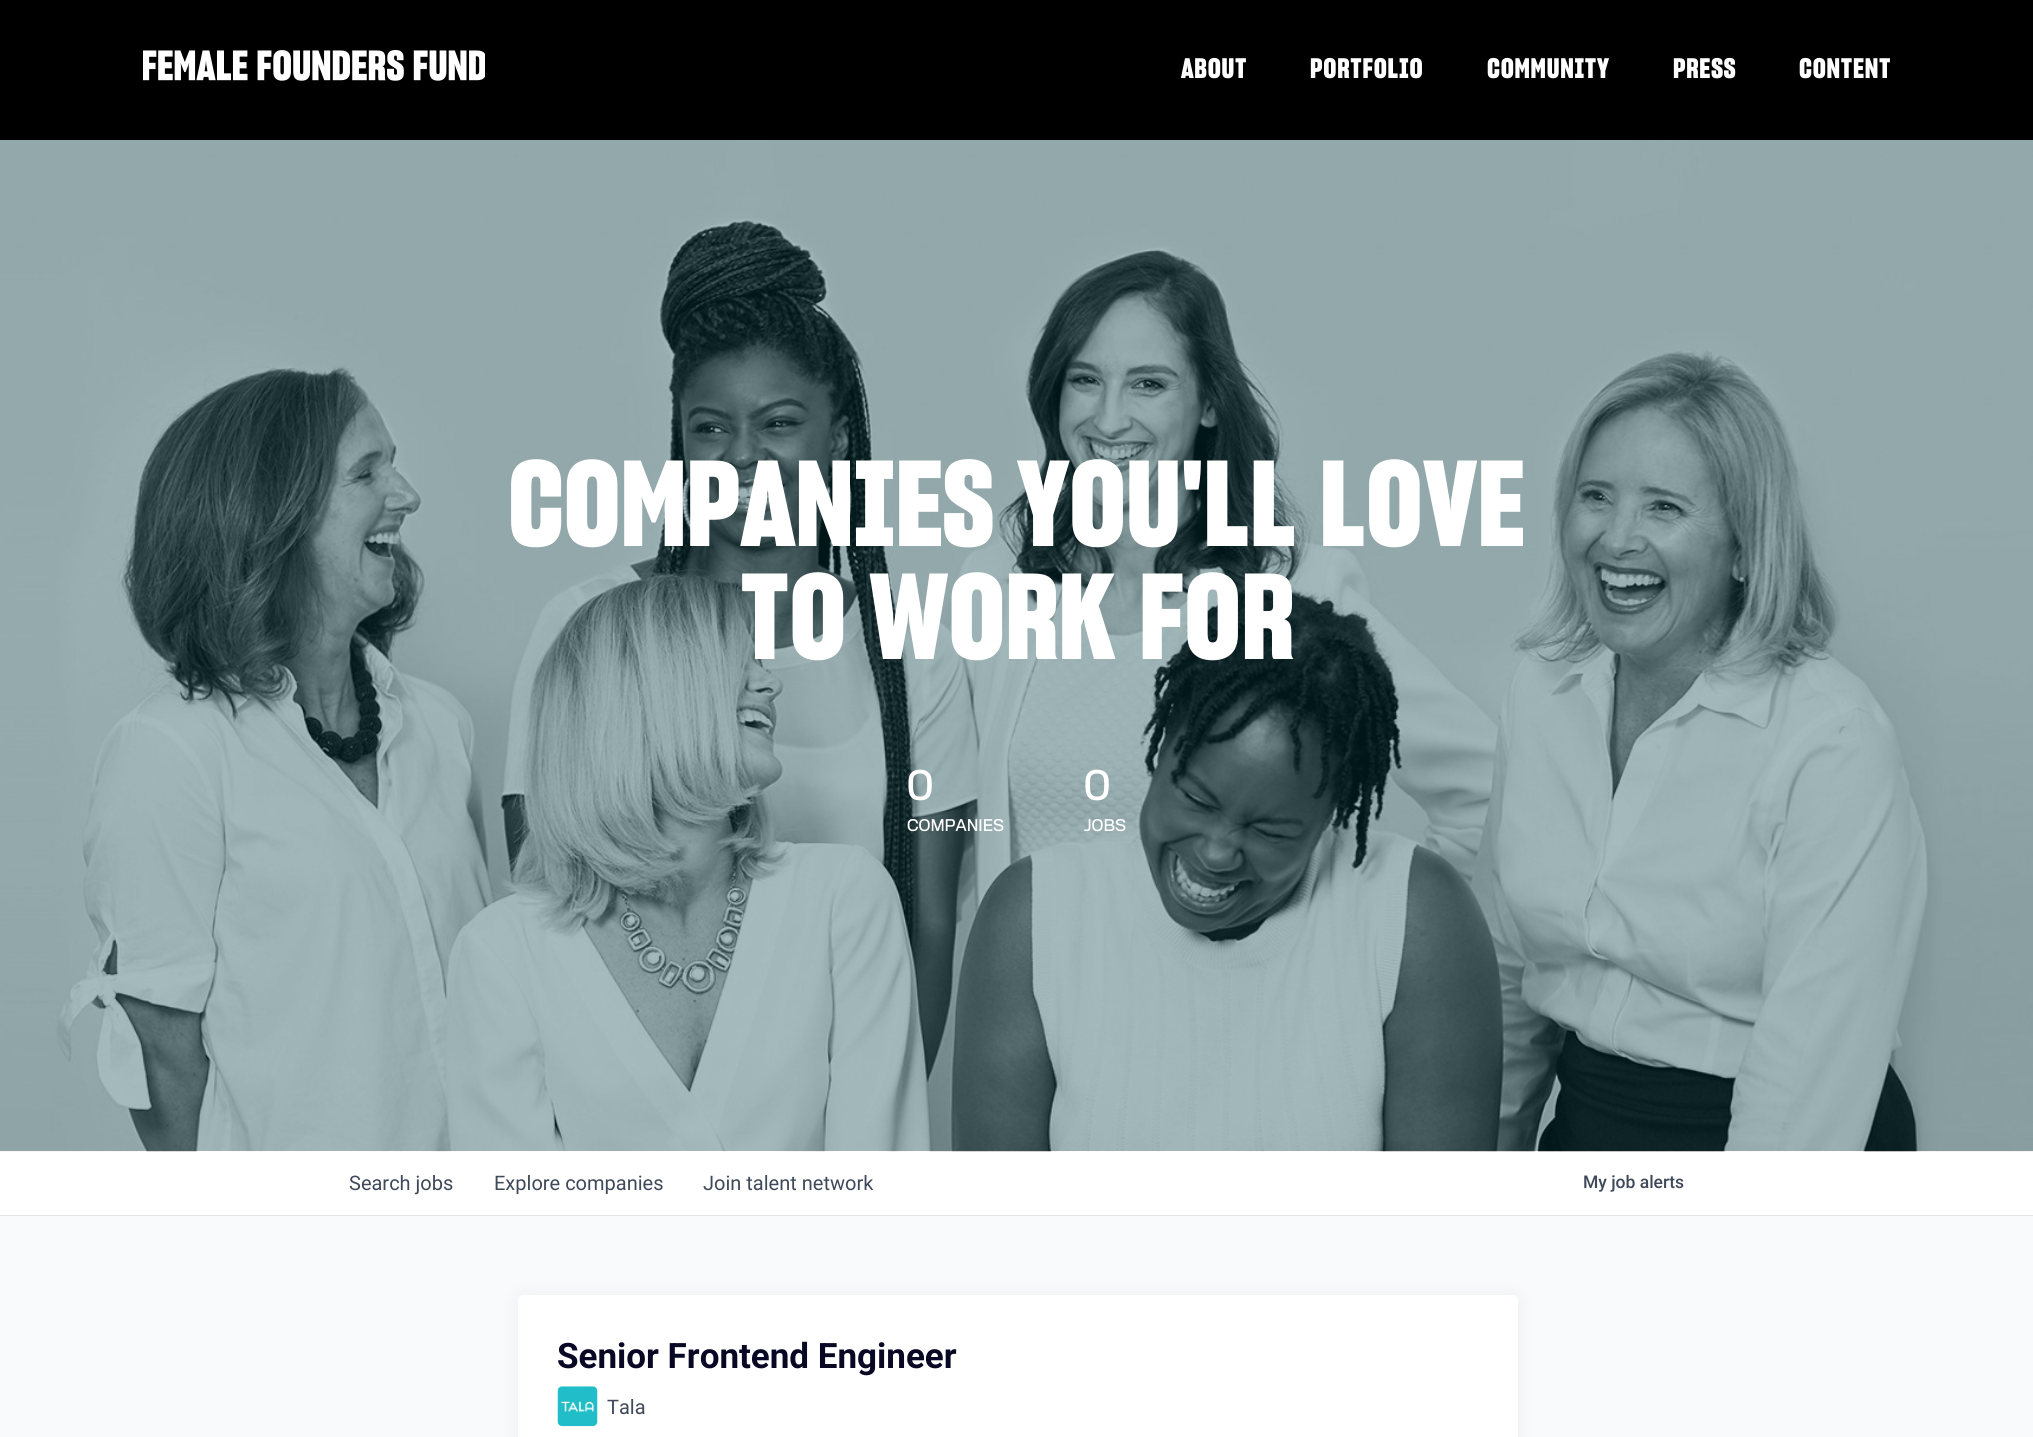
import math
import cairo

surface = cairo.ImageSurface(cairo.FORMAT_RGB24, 2033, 1437)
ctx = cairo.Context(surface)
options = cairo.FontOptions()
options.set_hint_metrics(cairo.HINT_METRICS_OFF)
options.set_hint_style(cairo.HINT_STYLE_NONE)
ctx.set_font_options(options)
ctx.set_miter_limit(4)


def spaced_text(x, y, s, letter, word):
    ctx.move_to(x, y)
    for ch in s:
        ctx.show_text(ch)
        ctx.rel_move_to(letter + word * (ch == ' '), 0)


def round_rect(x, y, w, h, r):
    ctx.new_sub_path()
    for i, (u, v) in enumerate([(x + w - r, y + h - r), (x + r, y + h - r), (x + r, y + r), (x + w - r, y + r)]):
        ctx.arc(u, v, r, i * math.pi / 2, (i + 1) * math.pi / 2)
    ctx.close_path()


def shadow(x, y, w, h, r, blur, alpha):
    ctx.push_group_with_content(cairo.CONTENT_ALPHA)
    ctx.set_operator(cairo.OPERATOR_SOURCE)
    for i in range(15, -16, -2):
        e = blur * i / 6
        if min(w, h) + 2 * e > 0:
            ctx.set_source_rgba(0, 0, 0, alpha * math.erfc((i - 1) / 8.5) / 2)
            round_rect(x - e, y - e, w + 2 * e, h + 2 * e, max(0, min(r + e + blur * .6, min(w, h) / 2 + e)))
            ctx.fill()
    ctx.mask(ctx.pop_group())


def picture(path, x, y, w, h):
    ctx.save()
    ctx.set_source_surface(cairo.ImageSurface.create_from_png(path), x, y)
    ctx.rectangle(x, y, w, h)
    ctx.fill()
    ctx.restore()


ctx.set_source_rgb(0.969, 0.98, 0.988)
ctx.paint()
ctx.set_source_rgb(0, 0, 0)
ctx.rectangle(0, 0, 2033, 140)
ctx.fill()
picture("img1.png", 143, 50, 342, 31)
ctx.select_font_face("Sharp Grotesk", cairo.FONT_SLANT_NORMAL, cairo.FONT_WEIGHT_BOLD)
ctx.set_font_size(27.5)
ctx.set_source_rgb(1, 1, 1)
spaced_text(1181, 78, "ABOUT", 0.75, 0)
spaced_text(1310, 78, "PORTFOLIO", 0.75, 0)
spaced_text(1487, 78, "COMMUNITY", 0.75, 0)
spaced_text(1673, 78, "PRESS", 0.75, 0)
spaced_text(1799, 78, "CONTENT", 0.75, 0)
ctx.rectangle(0, 1151, 2033, 64)
ctx.fill()
picture("img2.png", 0, 140, 2033, 1012)
ctx.set_font_size(118.75)
ctx.move_to(508, 546)
ctx.show_text("COMPANIES YOU'LL LOVE")
ctx.move_to(740, 659)
ctx.show_text("TO WORK FOR")
ctx.select_font_face("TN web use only")
ctx.set_font_size(38)
ctx.move_to(907, 800)
ctx.show_text("0")
ctx.set_font_size(15)
ctx.move_to(907, 831)
ctx.show_text("COMPANIES")
ctx.set_font_size(38)
ctx.move_to(1084, 800)
ctx.show_text("0")
ctx.set_font_size(15)
ctx.move_to(1084, 831)
ctx.show_text("JOBS")
ctx.set_source_rgb(0.898, 0.898, 0.898)
ctx.new_path()
ctx.move_to(0, 1215)
ctx.line_to(0, 1216)
ctx.line_to(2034, 1216)
ctx.line_to(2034, 1153)
ctx.line_to(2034, 1215)
ctx.close_path()
ctx.fill()
ctx.select_font_face("Roboto")
ctx.set_font_size(20)
ctx.set_source_rgb(0.247, 0.286, 0.353)
ctx.move_to(349, 1190)
ctx.show_text("Search jobs")
ctx.move_to(494, 1190)
ctx.show_text("Explore companies")
ctx.move_to(703, 1190)
ctx.show_text("Join talent network")
ctx.select_font_face("Roboto Medium")
ctx.set_font_size(17.5)
ctx.move_to(1583, 1188)
ctx.show_text("My job alerts")
ctx.set_source_rgb(0.106, 0.141, 0.196)
shadow(518, 1296, 1000, 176, 5, 10, 0.06)
ctx.set_source_rgb(1, 1, 1)
round_rect(518, 1295, 1000, 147, 5)
ctx.fill()
ctx.select_font_face("Roboto", cairo.FONT_SLANT_NORMAL, cairo.FONT_WEIGHT_BOLD)
ctx.set_font_size(35)
ctx.set_source_rgb(0.035, 0.035, 0.145)
ctx.move_to(557, 1368)
ctx.show_text("Senior Frontend Engineer")
picture("img3.png", 557, 1386, 41, 41)
ctx.select_font_face("Roboto")
ctx.set_font_size(20)
ctx.set_source_rgb(0.247, 0.286, 0.353)
ctx.move_to(607, 1414)
ctx.show_text("Tala")
surface.write_to_png("page.png")
